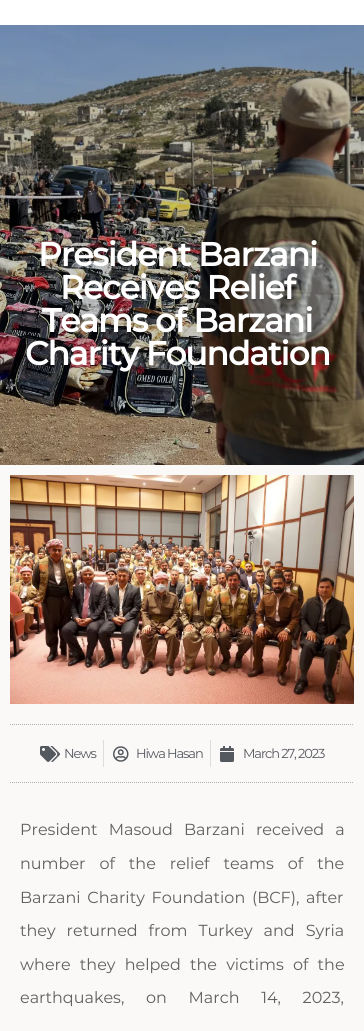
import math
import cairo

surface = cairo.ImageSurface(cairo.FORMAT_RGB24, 364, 1031)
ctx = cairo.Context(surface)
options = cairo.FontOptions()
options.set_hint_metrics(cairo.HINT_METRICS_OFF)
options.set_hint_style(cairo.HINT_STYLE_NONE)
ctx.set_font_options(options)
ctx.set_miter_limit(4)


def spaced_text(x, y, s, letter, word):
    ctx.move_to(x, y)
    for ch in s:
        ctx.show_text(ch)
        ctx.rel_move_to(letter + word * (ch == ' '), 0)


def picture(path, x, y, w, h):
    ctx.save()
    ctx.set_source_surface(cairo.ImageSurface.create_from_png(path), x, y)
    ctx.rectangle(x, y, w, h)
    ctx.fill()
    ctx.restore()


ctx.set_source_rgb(1, 1, 1)
ctx.paint()
picture("img1.png", 0, 25, 364, 440)
ctx.select_font_face("Montserrat", cairo.FONT_SLANT_NORMAL, cairo.FONT_WEIGHT_BOLD)
ctx.set_font_size(33)
ctx.set_source_rgb(1, 1, 1)
spaced_text(38, 266, "President Barzani", -1.1, 0)
spaced_text(60, 299, "Receives Relief", -1.1, 0)
spaced_text(42, 332, "Teams of Barzani", -1.1, 0)
spaced_text(25, 365, "Charity Foundation", -1.1, 0)
ctx.set_source_rgb(0.984, 0.969, 0.969)
ctx.rectangle(0, 465, 364, 566)
ctx.fill()
picture("img2.png", 10, 475, 344, 229)
ctx.new_path()
ctx.move_to(10, 724.5)
ctx.line_to(354, 724.5)
ctx.set_source_rgb(0.686, 0.686, 0.686)
ctx.set_line_width(1)
ctx.set_dash([1, 1])
ctx.stroke()
ctx.new_path()
ctx.move_to(10, 782.5)
ctx.line_to(354, 782.5)
ctx.stroke()
picture("img3.png", 40, 746, 20, 16)
ctx.select_font_face("Montserrat")
ctx.set_font_size(13)
ctx.set_source_rgb(0.329, 0.349, 0.373)
spaced_text(64, 758, "News", -1.1, 0)
ctx.set_source_rgb(0.867, 0.867, 0.867)
ctx.rectangle(103, 740, 1, 27)
ctx.fill()
picture("img4.png", 113, 746, 16, 16)
ctx.set_source_rgb(0.329, 0.349, 0.373)
spaced_text(136, 758, "Hiwa Hasan", -1.1, 0)
ctx.set_source_rgb(0.867, 0.867, 0.867)
ctx.rectangle(210, 740, 1, 27)
ctx.fill()
picture("img5.png", 220, 746, 14, 16)
ctx.set_source_rgb(0.329, 0.349, 0.373)
spaced_text(243, 758, "March 27, 2023", -1.1, 0)
ctx.set_font_size(16)
ctx.set_source_rgb(0.384, 0.373, 0.373)
spaced_text(20, 835, "President Masoud Barzani received a", 0, 7)
spaced_text(20, 869, "number of the relief teams of the", 0, 9.75)
spaced_text(20, 903, "Barzani Charity Foundation (BCF), after", 0, 2.5)
spaced_text(20, 936, "they returned from Turkey and Syria", 0, 6.75)
spaced_text(20, 970, "where they helped the victims of the", 0, 5)
spaced_text(20, 1003, "earthquakes, on March 14, 2023,", 0, 17.5)
surface.write_to_png("page.png")
